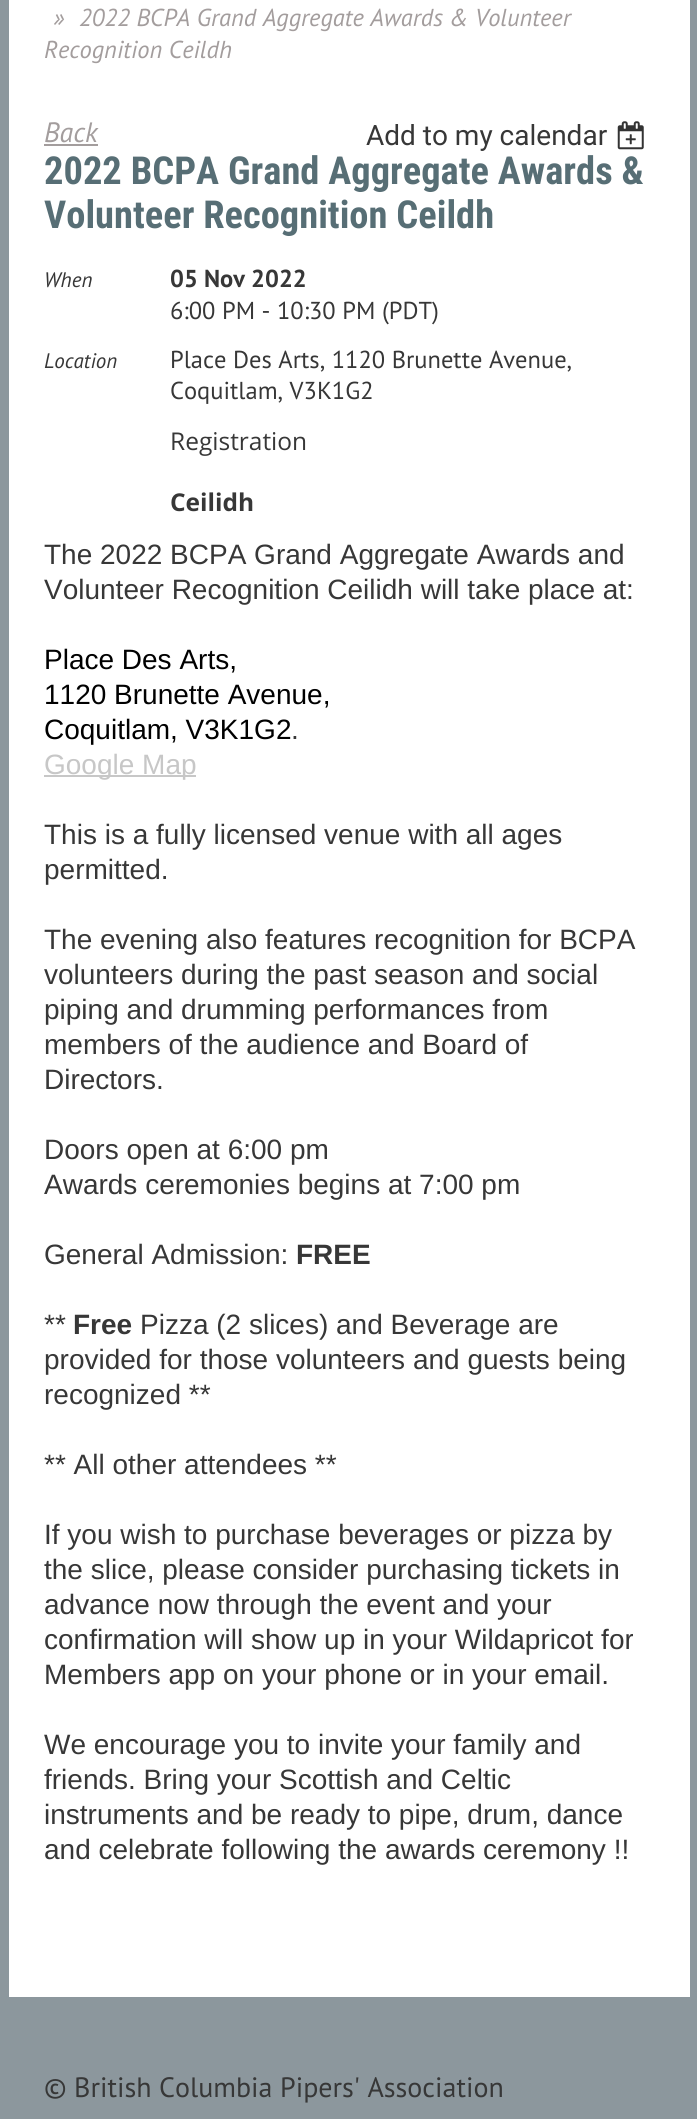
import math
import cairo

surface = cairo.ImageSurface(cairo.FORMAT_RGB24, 697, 2119)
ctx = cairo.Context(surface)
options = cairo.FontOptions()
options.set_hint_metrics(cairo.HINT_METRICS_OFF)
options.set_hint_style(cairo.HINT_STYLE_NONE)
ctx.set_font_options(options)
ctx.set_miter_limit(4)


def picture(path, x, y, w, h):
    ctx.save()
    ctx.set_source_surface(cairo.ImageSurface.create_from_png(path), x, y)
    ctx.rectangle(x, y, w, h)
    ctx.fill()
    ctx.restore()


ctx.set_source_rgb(0.549, 0.592, 0.616)
ctx.paint()
ctx.set_source_rgb(1, 1, 1)
ctx.rectangle(9, 0, 681, 1997)
ctx.fill()
ctx.select_font_face("PT Sans", cairo.FONT_SLANT_ITALIC)
ctx.set_font_size(24.5)
ctx.set_source_rgb(0.639, 0.616, 0.616)
ctx.move_to(53, 26)
ctx.show_text("»")
ctx.move_to(79, 26)
ctx.show_text("2022 BCPA Grand Aggregate Awards & Volunteer")
ctx.move_to(44, 58)
ctx.show_text("Recognition Ceildh")
ctx.set_font_size(28)
ctx.move_to(44, 142)
ctx.show_text("Back")
ctx.rectangle(44, 144, 54, 2)
ctx.fill()
ctx.select_font_face("Roboto")
ctx.set_source_rgb(0.216, 0.216, 0.216)
ctx.move_to(366, 145)
ctx.show_text("Add to my calendar")
picture("img1.png", 617, 121, 27, 29)
ctx.select_font_face("Roboto Condensed", cairo.FONT_SLANT_NORMAL, cairo.FONT_WEIGHT_BOLD)
ctx.set_font_size(38.5)
ctx.set_source_rgb(0.341, 0.431, 0.459)
ctx.move_to(44, 184)
ctx.show_text("2022 BCPA Grand Aggregate Awards &")
ctx.move_to(44, 228)
ctx.show_text("Volunteer Recognition Ceildh")
ctx.select_font_face("PT Sans", cairo.FONT_SLANT_ITALIC)
ctx.set_font_size(21)
ctx.set_source_rgb(0.216, 0.216, 0.216)
ctx.move_to(44, 287)
ctx.show_text("When")
ctx.select_font_face("PT Sans", cairo.FONT_SLANT_NORMAL, cairo.FONT_WEIGHT_BOLD)
ctx.set_font_size(24.5)
ctx.move_to(170, 287)
ctx.show_text("05 Nov 2022")
ctx.select_font_face("PT Sans")
ctx.move_to(170, 319)
ctx.show_text("6:00 PM - 10:30 PM (PDT)")
ctx.select_font_face("PT Sans", cairo.FONT_SLANT_ITALIC)
ctx.set_font_size(21)
ctx.move_to(44, 368)
ctx.show_text("Location")
ctx.select_font_face("PT Sans")
ctx.set_font_size(24.5)
ctx.move_to(170, 368)
ctx.show_text("Place Des Arts, 1120 Brunette Avenue,")
ctx.move_to(170, 399)
ctx.show_text("Coquitlam, V3K1G2")
ctx.select_font_face("Open Sans")
ctx.move_to(170, 450)
ctx.show_text("Registration")
ctx.select_font_face("Open Sans", cairo.FONT_SLANT_NORMAL, cairo.FONT_WEIGHT_BOLD)
ctx.move_to(170, 511)
ctx.show_text("Ceilidh")
ctx.select_font_face("Liberation Sans")
ctx.set_font_size(28)
ctx.move_to(44, 564)
ctx.show_text("The 2022 BCPA Grand Aggregate Awards and")
ctx.move_to(44, 599)
ctx.show_text("Volunteer Recognition Ceilidh will take place at:")
ctx.set_source_rgb(0, 0, 0)
ctx.move_to(44, 669)
ctx.show_text("Place Des Arts,")
ctx.move_to(44, 704)
ctx.show_text("1120 Brunette Avenue,")
ctx.move_to(44, 739)
ctx.show_text("Coquitlam, V3K1G2")
ctx.set_source_rgb(0.216, 0.216, 0.216)
ctx.move_to(291, 739)
ctx.show_text(".")
ctx.set_source_rgb(0.78, 0.78, 0.78)
ctx.rectangle(44, 775, 152, 2)
ctx.fill()
ctx.move_to(44, 774)
ctx.show_text("Google Map")
ctx.set_source_rgb(0.216, 0.216, 0.216)
ctx.move_to(44, 844)
ctx.show_text("This is a fully licensed venue with all ages")
ctx.move_to(44, 879)
ctx.show_text("permitted.")
ctx.move_to(44, 949)
ctx.show_text("The evening also features recognition for BCPA")
ctx.move_to(44, 984)
ctx.show_text("volunteers during the past season and social")
ctx.move_to(44, 1019)
ctx.show_text("piping and drumming performances from")
ctx.move_to(44, 1054)
ctx.show_text("members of the audience and Board of")
ctx.move_to(44, 1089)
ctx.show_text("Directors.")
ctx.move_to(44, 1159)
ctx.show_text("Doors open at 6:00 pm")
ctx.move_to(44, 1194)
ctx.show_text("Awards ceremonies begins at 7:00 pm")
ctx.move_to(44, 1264)
ctx.show_text("General Admission:")
ctx.select_font_face("Liberation Sans", cairo.FONT_SLANT_NORMAL, cairo.FONT_WEIGHT_BOLD)
ctx.move_to(296, 1264)
ctx.show_text("FREE")
ctx.select_font_face("Liberation Sans")
ctx.move_to(44, 1334)
ctx.show_text("**")
ctx.select_font_face("Liberation Sans", cairo.FONT_SLANT_NORMAL, cairo.FONT_WEIGHT_BOLD)
ctx.move_to(73, 1334)
ctx.show_text("Free")
ctx.select_font_face("Liberation Sans")
ctx.move_to(140, 1334)
ctx.show_text("Pizza (2 slices) and Beverage are")
ctx.move_to(44, 1369)
ctx.show_text("provided for those volunteers and guests being")
ctx.move_to(44, 1404)
ctx.show_text("recognized **")
ctx.move_to(44, 1474)
ctx.show_text("** All other attendees **")
ctx.move_to(44, 1544)
ctx.show_text("If you wish to purchase beverages or pizza by")
ctx.move_to(44, 1579)
ctx.show_text("the slice, please consider purchasing tickets in")
ctx.move_to(44, 1614)
ctx.show_text("advance now through the event and your")
ctx.move_to(44, 1649)
ctx.show_text("confirmation will show up in your Wildapricot for")
ctx.move_to(44, 1684)
ctx.show_text("Members app on your phone or in your email.")
ctx.move_to(44, 1754)
ctx.show_text("We encourage you to invite your family and")
ctx.move_to(44, 1789)
ctx.show_text("friends. Bring your Scottish and Celtic")
ctx.move_to(44, 1824)
ctx.show_text("instruments and be ready to pipe, drum, dance")
ctx.move_to(44, 1859)
ctx.show_text("and celebrate following the awards ceremony !!")
ctx.select_font_face("PT Sans")
ctx.move_to(44, 2097)
ctx.show_text("© British Columbia Pipers' Association")
surface.write_to_png("page.png")
